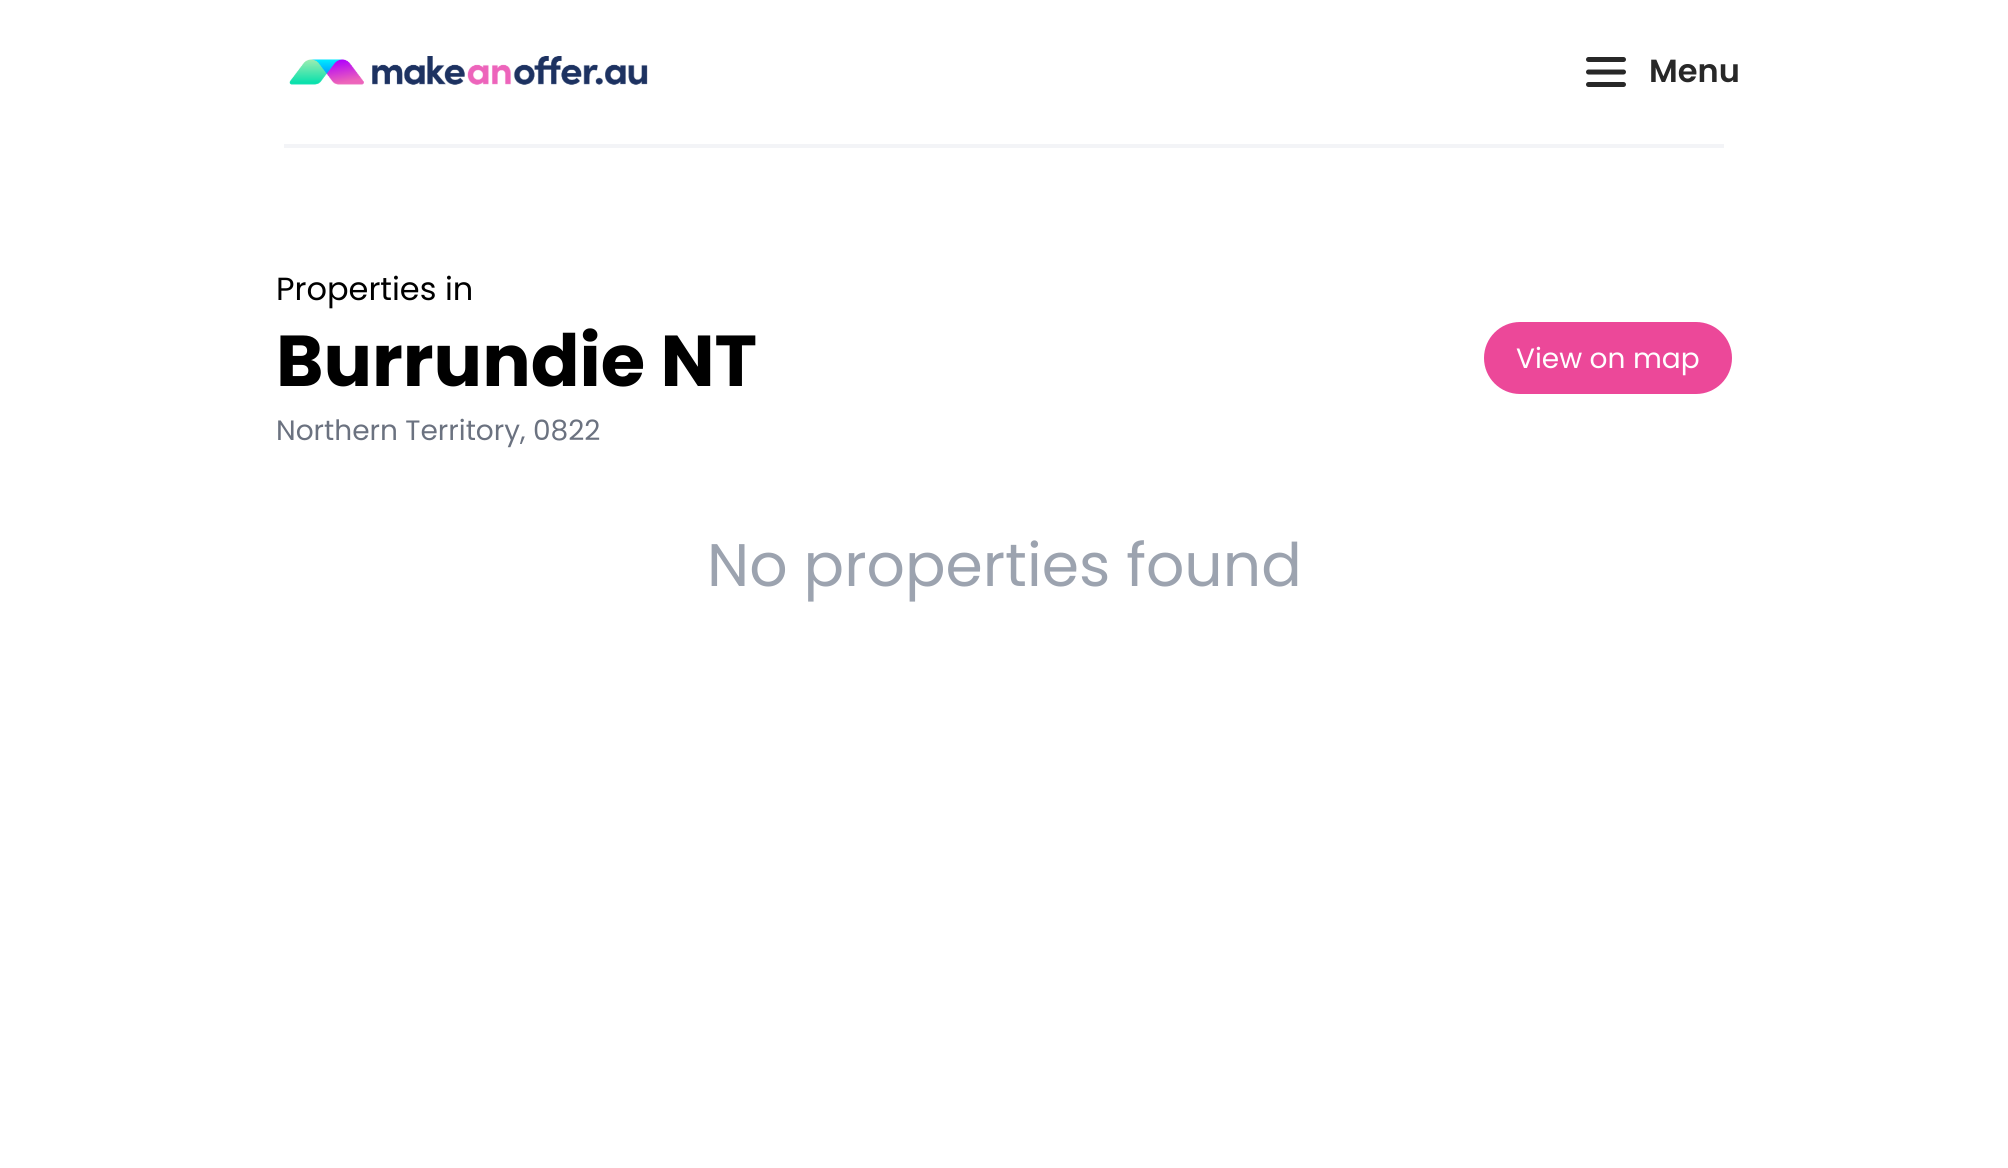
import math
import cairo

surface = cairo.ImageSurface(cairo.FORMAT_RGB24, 2008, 1168)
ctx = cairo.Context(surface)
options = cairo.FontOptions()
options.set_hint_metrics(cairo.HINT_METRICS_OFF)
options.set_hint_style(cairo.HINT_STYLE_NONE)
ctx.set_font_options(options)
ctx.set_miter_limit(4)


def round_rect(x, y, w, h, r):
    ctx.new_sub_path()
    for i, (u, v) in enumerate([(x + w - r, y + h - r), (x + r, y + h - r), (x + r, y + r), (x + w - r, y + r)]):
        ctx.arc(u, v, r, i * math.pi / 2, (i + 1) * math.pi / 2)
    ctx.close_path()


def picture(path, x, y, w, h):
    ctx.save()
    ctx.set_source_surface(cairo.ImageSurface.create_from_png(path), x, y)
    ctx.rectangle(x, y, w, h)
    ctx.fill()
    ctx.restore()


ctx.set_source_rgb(1, 1, 1)
ctx.paint()
ctx.set_source_rgb(0.953, 0.957, 0.965)
ctx.rectangle(284, 144, 1440, 4)
ctx.fill()
picture("img1.png", 289, 56, 359, 29)
picture("img2.png", 1586, 57, 40, 30)
ctx.select_font_face("Poppins SemiBold")
ctx.set_font_size(32)
ctx.set_source_rgb(0.157, 0.157, 0.157)
ctx.move_to(1649, 82)
ctx.show_text("Menu")
ctx.select_font_face("Poppins")
ctx.set_source_rgb(0, 0, 0)
ctx.move_to(276, 300)
ctx.show_text("Properties in")
ctx.select_font_face("Poppins", cairo.FONT_SLANT_NORMAL, cairo.FONT_WEIGHT_BOLD)
ctx.set_font_size(72)
ctx.move_to(276, 386)
ctx.show_text("Burrundie NT")
ctx.select_font_face("Poppins")
ctx.set_font_size(28)
ctx.set_source_rgb(0.42, 0.447, 0.502)
ctx.move_to(276, 440)
ctx.show_text("Northern Territory, 0822")
ctx.set_source_rgb(0.925, 0.282, 0.6)
round_rect(1484, 322, 248, 72, 36)
ctx.fill()
ctx.set_source_rgb(1, 1, 1)
ctx.move_to(1516, 368)
ctx.show_text("View on map")
ctx.set_font_size(60)
ctx.set_source_rgb(0.612, 0.639, 0.686)
ctx.move_to(707, 586)
ctx.show_text("No properties found")
surface.write_to_png("page.png")
